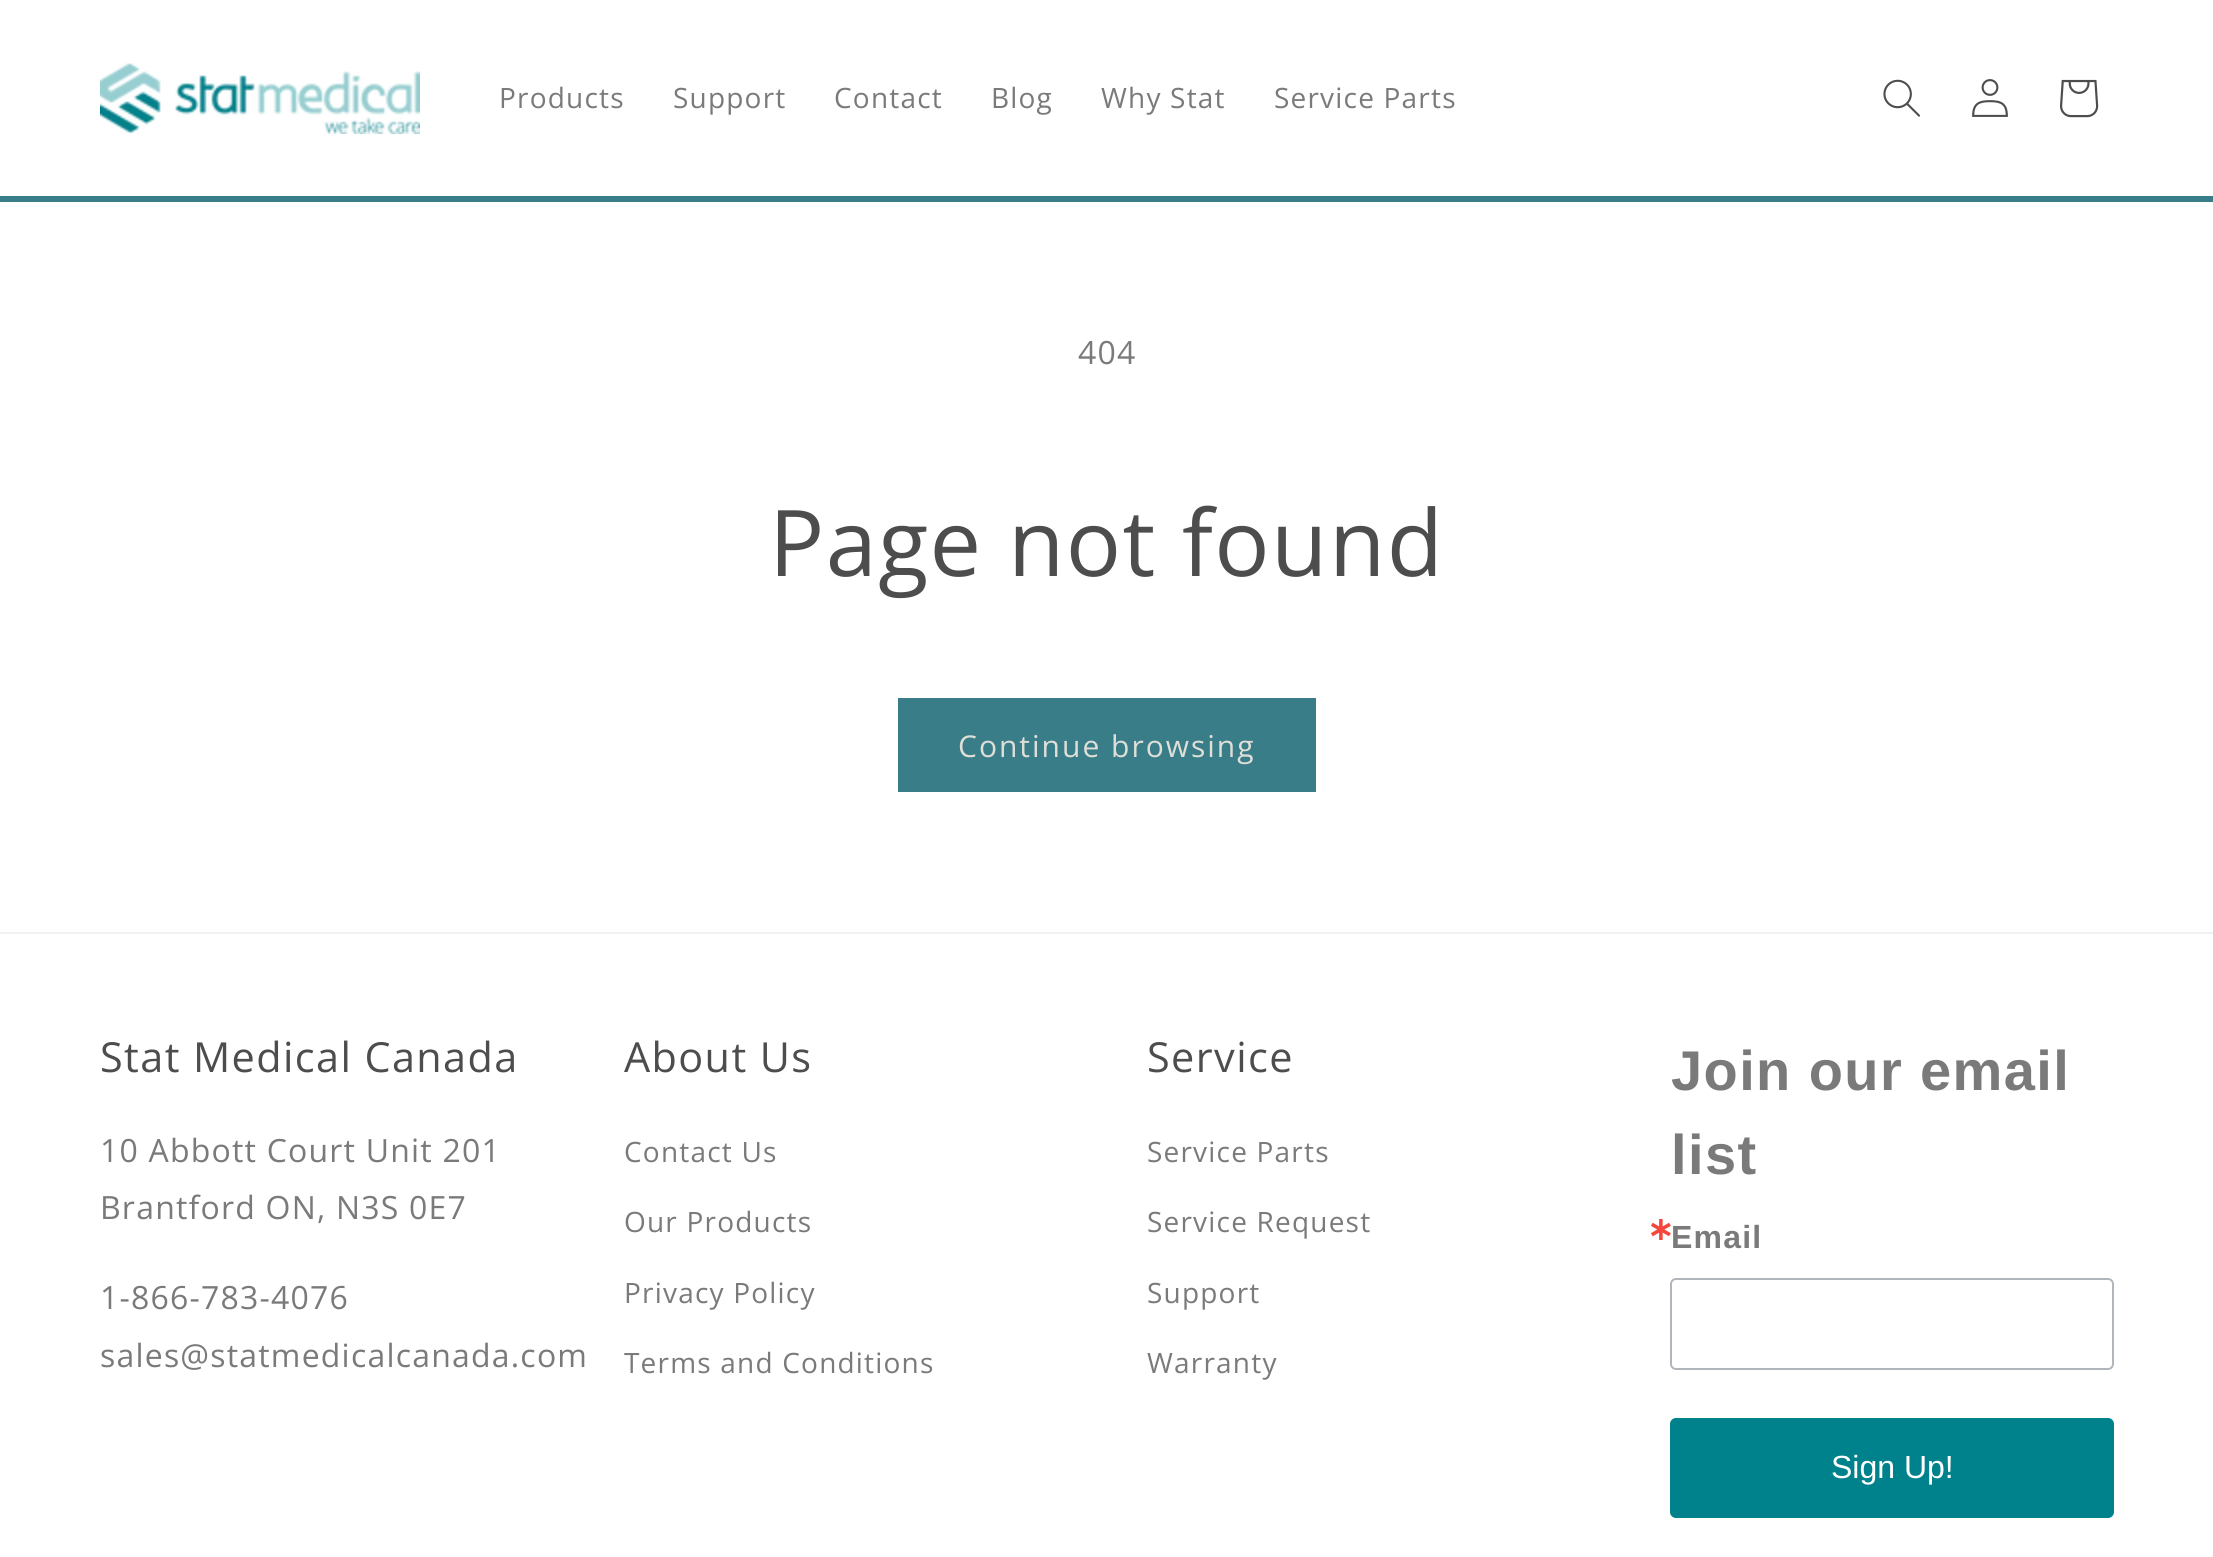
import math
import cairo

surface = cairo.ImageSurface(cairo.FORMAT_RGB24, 2213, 1557)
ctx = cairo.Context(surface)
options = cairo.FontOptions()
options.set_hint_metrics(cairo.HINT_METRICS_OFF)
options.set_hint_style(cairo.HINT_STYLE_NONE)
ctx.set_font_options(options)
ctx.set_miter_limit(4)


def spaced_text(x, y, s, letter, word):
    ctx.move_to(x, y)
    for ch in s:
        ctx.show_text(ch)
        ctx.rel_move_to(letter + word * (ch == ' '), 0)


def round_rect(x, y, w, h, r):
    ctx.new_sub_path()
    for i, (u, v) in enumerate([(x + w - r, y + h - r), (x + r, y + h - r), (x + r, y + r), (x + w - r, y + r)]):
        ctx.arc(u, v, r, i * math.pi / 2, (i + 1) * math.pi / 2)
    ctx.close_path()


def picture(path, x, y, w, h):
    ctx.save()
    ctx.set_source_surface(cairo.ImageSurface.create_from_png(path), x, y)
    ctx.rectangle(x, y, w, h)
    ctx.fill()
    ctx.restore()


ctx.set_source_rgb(1, 1, 1)
ctx.paint()
ctx.set_source_rgb(0.22, 0.49, 0.533)
ctx.rectangle(0, 196, 2213, 6)
ctx.fill()
picture("img1.png", 100, 63, 320, 71)
ctx.select_font_face("Open Sans")
ctx.set_font_size(28)
ctx.set_source_rgb(0.478, 0.478, 0.478)
spaced_text(499, 108, "Products", 1.2, 0)
spaced_text(673, 108, "Support", 1.2, 0)
spaced_text(834, 108, "Contact", 1.2, 0)
spaced_text(991, 108, "Blog", 1.2, 0)
spaced_text(1101, 108, "Why Stat", 1.2, 0)
spaced_text(1274, 108, "Service Parts", 1.2, 0)
picture("img2.png", 1883, 79, 37, 38)
picture("img3.png", 1972, 79, 36, 38)
picture("img4.png", 2060, 79, 39, 39)
ctx.set_font_size(32)
spaced_text(1078, 364, "404", 1.2, 0)
ctx.set_font_size(92)
ctx.set_source_rgb(0.302, 0.302, 0.302)
spaced_text(769, 576, "Page not found", 1.4, 0)
ctx.set_source_rgb(0.22, 0.49, 0.533)
ctx.rectangle(898, 698, 418, 94)
ctx.fill()
ctx.set_font_size(30)
ctx.set_source_rgb(0.875, 0.875, 0.847)
spaced_text(958, 757, "Continue browsing", 2, 0)
ctx.set_source_rgb(0.945, 0.945, 0.945)
ctx.rectangle(0, 932, 2213, 2)
ctx.fill()
ctx.set_font_size(41.4)
ctx.set_source_rgb(0.302, 0.302, 0.302)
spaced_text(100, 1072, "Stat Medical Canada", 1.4, 0)
ctx.set_font_size(32)
ctx.set_source_rgb(0.478, 0.478, 0.478)
spaced_text(100, 1162, "10 Abbott Court Unit 201", 1.2, 0)
spaced_text(100, 1219, "Brantford ON, N3S 0E7", 1.2, 0)
spaced_text(100, 1309, "1-866-783-4076", 1.2, 0)
spaced_text(100, 1367, "sales@statmedicalcanada.com", 1.2, 0)
ctx.set_font_size(41.4)
ctx.set_source_rgb(0.302, 0.302, 0.302)
spaced_text(624, 1072, "About Us", 1.4, 0)
ctx.set_font_size(28)
ctx.set_source_rgb(0.478, 0.478, 0.478)
spaced_text(624, 1162, "Contact Us", 1.2, 0)
spaced_text(624, 1232, "Our Products", 1.2, 0)
spaced_text(624, 1303, "Privacy Policy", 1.2, 0)
spaced_text(624, 1373, "Terms and Conditions", 1.2, 0)
ctx.set_font_size(41.4)
ctx.set_source_rgb(0.302, 0.302, 0.302)
spaced_text(1147, 1072, "Service", 1.4, 0)
ctx.set_font_size(28)
ctx.set_source_rgb(0.478, 0.478, 0.478)
spaced_text(1147, 1162, "Service Parts", 1.2, 0)
spaced_text(1147, 1232, "Service Request", 1.2, 0)
spaced_text(1147, 1303, "Support", 1.2, 0)
spaced_text(1147, 1373, "Warranty", 1.2, 0)
ctx.select_font_face("Liberation Sans", cairo.FONT_SLANT_NORMAL, cairo.FONT_WEIGHT_BOLD)
ctx.set_font_size(56)
spaced_text(1671, 1090, "Join our email", 1.4, 0)
spaced_text(1671, 1174, "list", 1.4, 0)
ctx.select_font_face("DejaVu Sans", cairo.FONT_SLANT_NORMAL, cairo.FONT_WEIGHT_BOLD)
ctx.set_font_size(32)
ctx.set_source_rgb(0.961, 0.275, 0.231)
spaced_text(1647, 1240, "∗", 1.2, 0)
ctx.select_font_face("Liberation Sans", cairo.FONT_SLANT_NORMAL, cairo.FONT_WEIGHT_BOLD)
ctx.set_source_rgb(0.478, 0.478, 0.478)
spaced_text(1671, 1248, "Email", 1.2, 0)
round_rect(1671, 1279, 442, 90, 5)
ctx.set_source_rgb(0.69, 0.714, 0.733)
ctx.stroke()
ctx.set_source_rgb(0, 0.51, 0.549)
round_rect(1671, 1419, 442, 98, 5)
ctx.fill_preserve()
ctx.stroke()
ctx.select_font_face("Liberation Sans")
ctx.set_source_rgb(1, 1, 1)
ctx.move_to(1831, 1478)
ctx.show_text("Sign Up!")
surface.write_to_png("page.png")
